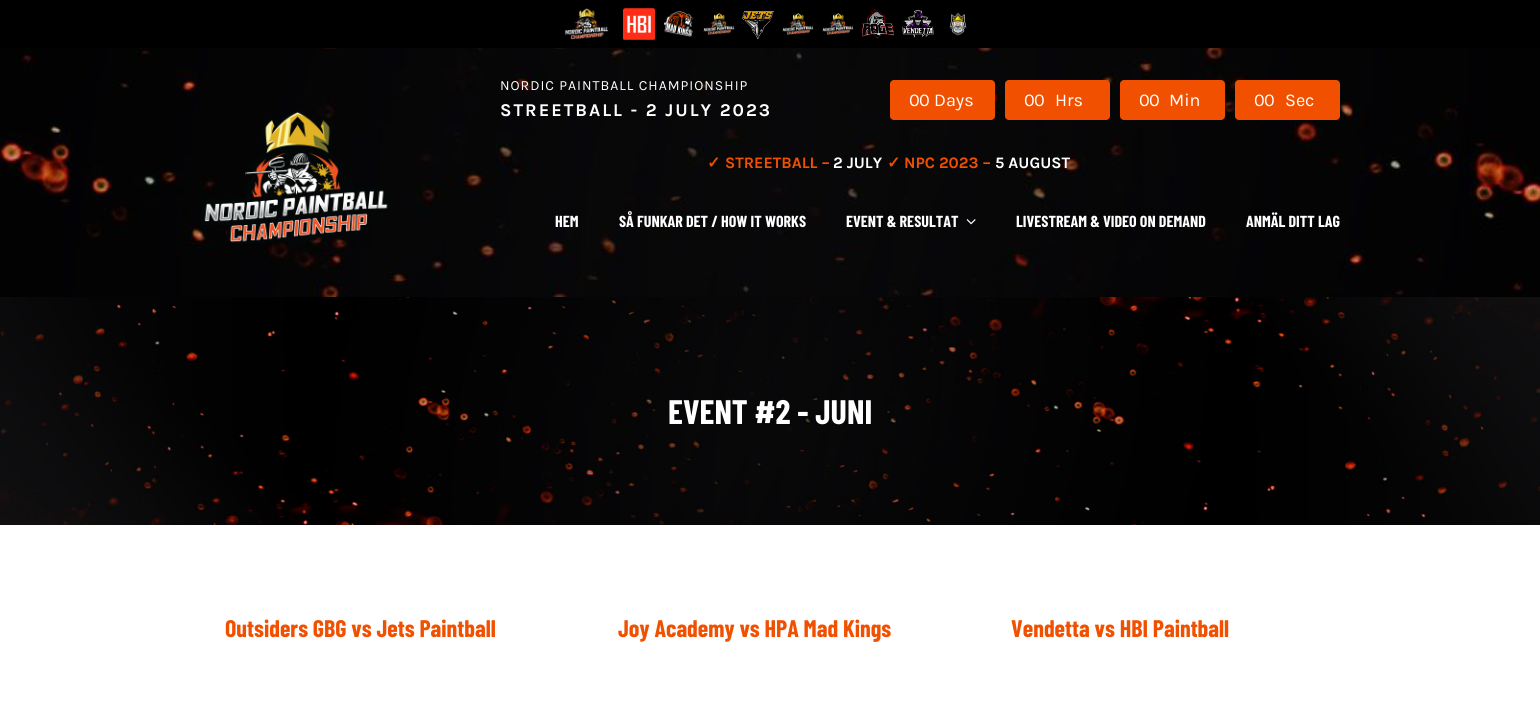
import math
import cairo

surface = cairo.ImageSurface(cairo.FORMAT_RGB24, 1540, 705)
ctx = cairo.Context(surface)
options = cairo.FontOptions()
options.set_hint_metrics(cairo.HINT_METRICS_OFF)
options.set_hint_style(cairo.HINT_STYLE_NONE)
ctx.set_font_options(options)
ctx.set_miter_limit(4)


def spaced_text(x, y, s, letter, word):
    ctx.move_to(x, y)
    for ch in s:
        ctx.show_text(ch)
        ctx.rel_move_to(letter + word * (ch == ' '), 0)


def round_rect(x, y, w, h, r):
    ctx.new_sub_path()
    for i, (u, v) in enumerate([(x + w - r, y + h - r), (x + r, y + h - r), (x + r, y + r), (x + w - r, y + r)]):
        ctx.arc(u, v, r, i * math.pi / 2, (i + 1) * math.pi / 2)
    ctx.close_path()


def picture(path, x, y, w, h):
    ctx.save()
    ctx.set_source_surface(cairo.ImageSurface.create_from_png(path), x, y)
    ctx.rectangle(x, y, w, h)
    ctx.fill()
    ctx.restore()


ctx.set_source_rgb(1, 1, 1)
ctx.paint()
ctx.set_source_rgb(0, 0, 0)
ctx.rectangle(0, 0, 1540, 48)
ctx.fill()
picture("img1.png", 564, 8, 45, 32)
picture("img2.png", 623, 8, 32, 32)
picture("img3.png", 663, 11, 31, 26)
picture("img4.png", 703, 13, 32, 22)
picture("img5.png", 742, 11, 32, 29)
picture("img4.png", 782, 13, 32, 22)
picture("img4.png", 822, 13, 32, 22)
picture("img6.png", 862, 8, 32, 31)
picture("img7.png", 902, 10, 32, 28)
picture("img8.png", 949, 12, 18, 24)
picture("img9.png", 0, 48, 1540, 249)
picture("img10.png", 201, 111, 187, 132)
ctx.select_font_face("Karla")
ctx.set_font_size(14)
ctx.set_source_rgb(1, 1, 1)
spaced_text(500, 90, "NORDIC PAINTBALL CHAMPIONSHIP", 1, 0)
ctx.select_font_face("Karla", cairo.FONT_SLANT_NORMAL, cairo.FONT_WEIGHT_BOLD)
ctx.set_font_size(18)
spaced_text(500, 116, "STREETBALL - 2 JULY 2023", 2, 0)
ctx.set_source_rgb(0.941, 0.314, 0)
round_rect(890, 80, 105, 40, 4)
ctx.fill()
ctx.select_font_face("Karla")
ctx.set_source_rgb(1, 1, 1)
ctx.move_to(909, 106)
ctx.show_text("0")
ctx.move_to(919, 106)
ctx.show_text("0")
ctx.move_to(934, 106)
ctx.show_text("Days")
ctx.set_source_rgb(0.941, 0.314, 0)
round_rect(1005, 80, 105, 40, 4)
ctx.fill()
ctx.set_source_rgb(1, 1, 1)
ctx.move_to(1024, 106)
ctx.show_text("0")
ctx.move_to(1034, 106)
ctx.show_text("0")
ctx.move_to(1055, 106)
ctx.show_text("Hrs")
ctx.set_source_rgb(0.941, 0.314, 0)
round_rect(1120, 80, 105, 40, 4)
ctx.fill()
ctx.set_source_rgb(1, 1, 1)
ctx.move_to(1139, 106)
ctx.show_text("0")
ctx.move_to(1149, 106)
ctx.show_text("0")
ctx.move_to(1169, 106)
ctx.show_text("Min")
ctx.set_source_rgb(0.941, 0.314, 0)
round_rect(1235, 80, 105, 40, 4)
ctx.fill()
ctx.set_source_rgb(1, 1, 1)
ctx.move_to(1254, 106)
ctx.show_text("0")
ctx.move_to(1264, 106)
ctx.show_text("0")
ctx.move_to(1285, 106)
ctx.show_text("Sec")
ctx.select_font_face("DejaVu Sans", cairo.FONT_SLANT_NORMAL, cairo.FONT_WEIGHT_BOLD)
ctx.set_font_size(16)
ctx.set_source_rgb(0.941, 0.314, 0)
ctx.move_to(707, 168)
ctx.show_text("✓")
ctx.select_font_face("Karla", cairo.FONT_SLANT_NORMAL, cairo.FONT_WEIGHT_BOLD)
ctx.move_to(725, 168)
ctx.show_text("STREETBALL –")
ctx.set_source_rgb(1, 1, 1)
ctx.move_to(833, 168)
ctx.show_text("2 JULY")
ctx.select_font_face("DejaVu Sans", cairo.FONT_SLANT_NORMAL, cairo.FONT_WEIGHT_BOLD)
ctx.set_source_rgb(0.941, 0.314, 0)
ctx.move_to(887, 168)
ctx.show_text("✓")
ctx.select_font_face("Karla", cairo.FONT_SLANT_NORMAL, cairo.FONT_WEIGHT_BOLD)
ctx.move_to(904, 168)
ctx.show_text("NPC 2023 –")
ctx.set_source_rgb(1, 1, 1)
ctx.move_to(995, 168)
ctx.show_text("5 AUGUST")
ctx.select_font_face("Barlow Condensed", cairo.FONT_SLANT_NORMAL, cairo.FONT_WEIGHT_BOLD)
ctx.move_to(555, 227)
ctx.show_text("HEM")
ctx.move_to(619, 227)
ctx.show_text("SÅ FUNKAR DET / HOW IT WORKS")
ctx.move_to(846, 227)
ctx.show_text("EVENT & RESULTAT")
picture("img11.png", 966, 219, 10, 6)
ctx.move_to(1016, 227)
ctx.show_text("LIVESTREAM & VIDEO ON DEMAND")
ctx.move_to(1246, 227)
ctx.show_text("ANMÄL DITT LAG")
picture("img12.png", 0, 297, 1540, 228)
ctx.set_font_size(34)
ctx.move_to(668, 424)
ctx.show_text("EVENT #2 - JUNI")
ctx.set_font_size(24)
ctx.set_source_rgb(0.941, 0.314, 0)
ctx.move_to(225, 637)
ctx.show_text("Outsiders GBG vs Jets Paintball")
ctx.move_to(618, 637)
ctx.show_text("Joy Academy vs HPA Mad Kings")
ctx.move_to(1011, 637)
ctx.show_text("Vendetta vs HBI Paintball")
surface.write_to_png("page.png")
